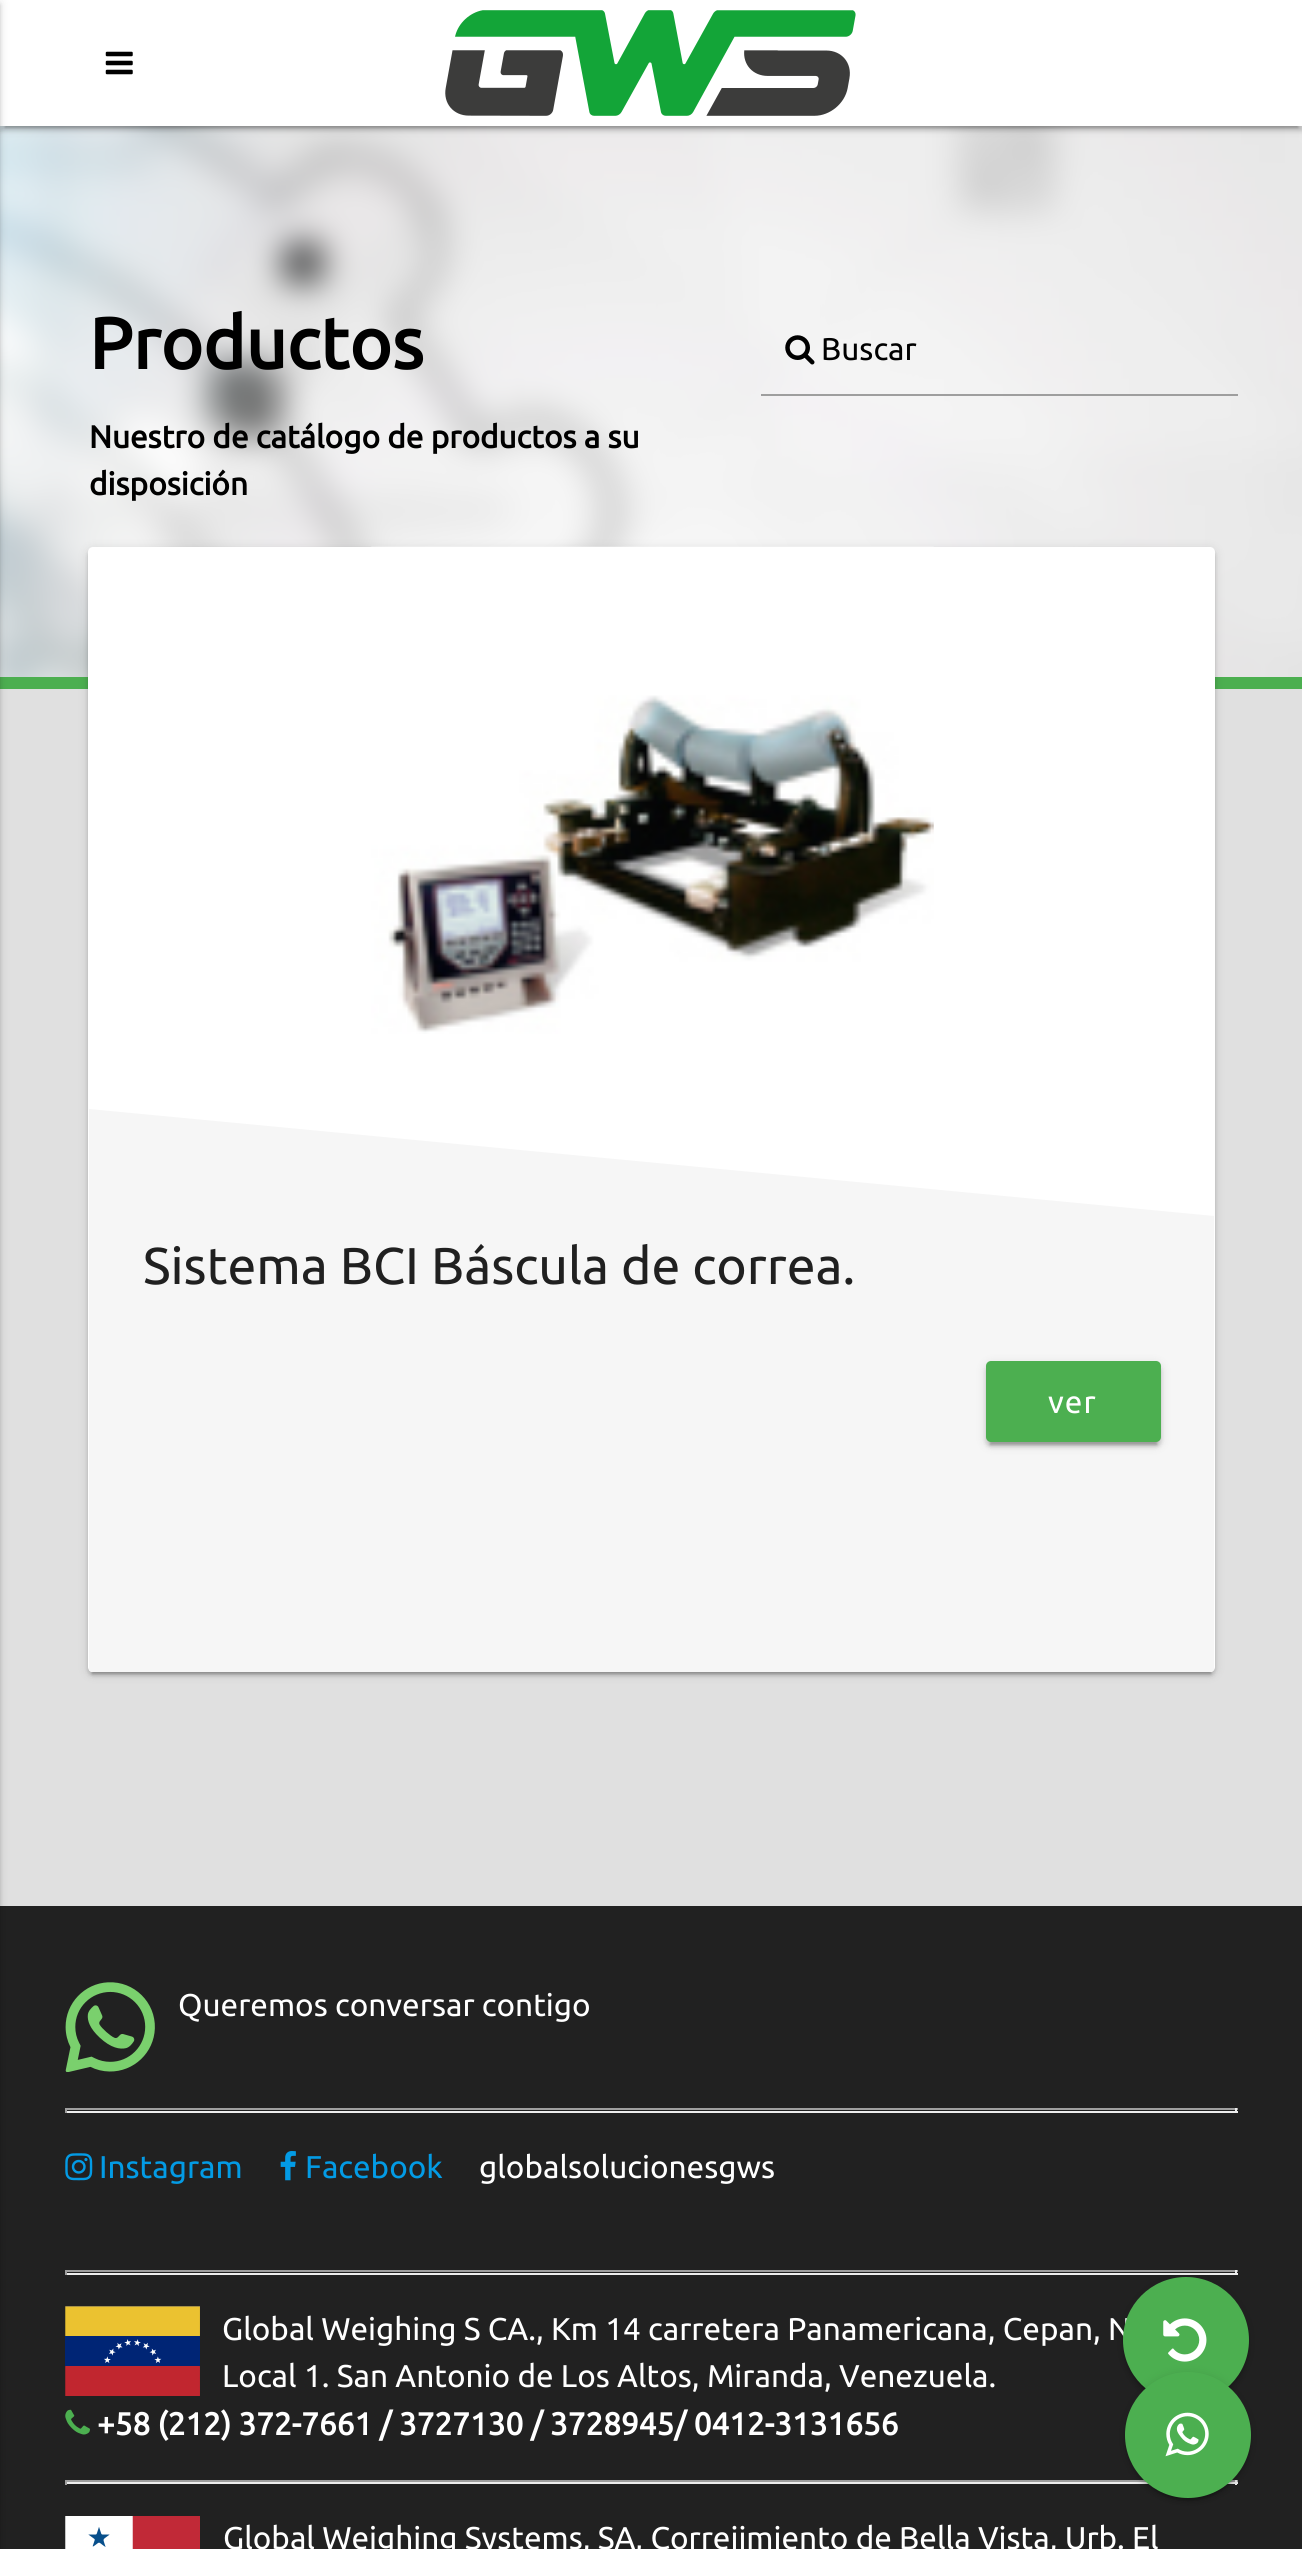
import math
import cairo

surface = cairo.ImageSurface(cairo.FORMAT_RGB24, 1302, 2549)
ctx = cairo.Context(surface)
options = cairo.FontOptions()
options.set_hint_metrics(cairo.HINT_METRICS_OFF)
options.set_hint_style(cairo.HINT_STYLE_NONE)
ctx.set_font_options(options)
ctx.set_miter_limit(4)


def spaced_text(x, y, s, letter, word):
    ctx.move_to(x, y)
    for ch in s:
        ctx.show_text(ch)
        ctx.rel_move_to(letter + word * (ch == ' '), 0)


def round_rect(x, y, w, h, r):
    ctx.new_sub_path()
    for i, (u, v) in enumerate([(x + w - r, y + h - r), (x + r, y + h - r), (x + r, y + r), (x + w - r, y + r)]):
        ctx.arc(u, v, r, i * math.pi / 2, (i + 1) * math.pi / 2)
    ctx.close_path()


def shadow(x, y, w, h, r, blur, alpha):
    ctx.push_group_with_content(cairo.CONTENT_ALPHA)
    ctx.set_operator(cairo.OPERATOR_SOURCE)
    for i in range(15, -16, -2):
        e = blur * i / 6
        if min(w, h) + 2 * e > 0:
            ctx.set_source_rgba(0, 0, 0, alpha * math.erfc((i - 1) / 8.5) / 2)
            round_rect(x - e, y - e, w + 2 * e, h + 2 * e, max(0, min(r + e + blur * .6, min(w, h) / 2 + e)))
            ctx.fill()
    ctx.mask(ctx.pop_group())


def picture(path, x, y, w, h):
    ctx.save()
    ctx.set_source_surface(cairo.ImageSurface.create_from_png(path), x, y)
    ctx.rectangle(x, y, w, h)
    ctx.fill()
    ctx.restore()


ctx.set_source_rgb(0.878, 0.878, 0.878)
ctx.paint()
picture("img3.png", 0, 126, 1302, 551)
ctx.set_source_rgb(0, 0, 0)
shadow(5, 11, 1293, 117, 0, 1, 0.2)
shadow(0, 2, 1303, 126, 0, 5.5, 0.12)
shadow(0, 5, 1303, 126, 0, 2, 0.14)
ctx.set_source_rgb(1, 1, 1)
ctx.rectangle(0, 0, 1302, 126)
ctx.fill()
ctx.set_source_rgb(0.298, 0.686, 0.314)
ctx.rectangle(0, 677, 1302, 12)
ctx.fill()
ctx.set_source_rgb(0.129, 0.129, 0.129)
ctx.rectangle(0, 1906, 1302, 643)
ctx.fill()
ctx.set_source_rgb(0, 0, 0)
shadow(-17, 2, 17, 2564, 0, 5.5, 0.12)
shadow(-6, 5, 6, 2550, 0, 2, 0.14)
picture("img1.png", 105, 51, 28, 24)
picture("img2.png", 445, 10, 411, 106)
ctx.select_font_face("Ubuntu", cairo.FONT_SLANT_NORMAL, cairo.FONT_WEIGHT_BOLD)
ctx.set_font_size(72)
ctx.set_source_rgb(0, 0, 0)
ctx.move_to(89, 369)
ctx.show_text("Productos")
picture("img4.png", 785, 335, 30, 30)
ctx.select_font_face("Ubuntu")
ctx.set_font_size(31.5)
ctx.move_to(821, 360)
ctx.show_text("Buscar")
ctx.set_source_rgb(0.62, 0.62, 0.62)
ctx.rectangle(761, 394, 477, 2)
ctx.fill()
ctx.select_font_face("Ubuntu", cairo.FONT_SLANT_NORMAL, cairo.FONT_WEIGHT_BOLD)
ctx.set_source_rgb(0, 0, 0)
ctx.move_to(89, 448)
ctx.show_text("Nuestro de catálogo de productos a su")
ctx.move_to(89, 495)
ctx.show_text("disposición")
ctx.set_source_rgb(0, 0, 0)
shadow(92, 558, 1119, 1116, 0, 1, 0.2)
shadow(88, 549, 1127, 1125, 5, 5.5, 0.12)
shadow(88, 551, 1127, 1125, 5, 2, 0.14)
ctx.set_source_rgb(1, 1, 1)
round_rect(88, 547, 1127, 1125, 5)
ctx.fill()
picture("img5.png", 371, 546, 563, 488)
ctx.set_source_rgb(0.961, 0.961, 0.961)
ctx.new_path()
ctx.move_to(89, 1109)
ctx.line_to(1214, 1216)
ctx.line_to(1214, 1670)
ctx.line_to(1212, 1672)
ctx.line_to(91, 1672)
ctx.curve_to(90, 1671, 89, 1671, 89, 1670)
ctx.close_path()
ctx.fill()
ctx.select_font_face("Ubuntu")
ctx.set_font_size(51.7)
ctx.set_source_rgb(0.125, 0.125, 0.125)
ctx.move_to(143, 1284)
ctx.show_text("Sistema BCI Báscula de correa.")
ctx.set_source_rgb(0, 0, 0)
shadow(990, 1373, 167, 72, 0, 1, 0.2)
shadow(986, 1364, 175, 81, 5, 5.5, 0.12)
shadow(986, 1366, 175, 81, 5, 2, 0.14)
ctx.set_source_rgb(0.298, 0.686, 0.314)
round_rect(986, 1361, 175, 81, 5)
ctx.fill()
ctx.set_font_size(31.5)
ctx.set_source_rgb(1, 1, 1)
spaced_text(1048, 1413, "ver", 1, 0)
ctx.set_source_rgb(0, 0, 0)
shadow(1127, 2288, 117, 117, 58.5, 1, 0.2)
ctx.set_source_rgb(0.624, 0.624, 0.624)
ctx.rectangle(65, 2270, 1173, 2)
ctx.fill()
ctx.set_source_rgb(0.933, 0.933, 0.933)
ctx.rectangle(1235, 2270, 2, 5)
ctx.fill()
ctx.rectangle(65, 2273, 1173, 2)
ctx.fill()
ctx.set_source_rgb(0, 0, 0)
shadow(1123, 2279, 126, 126, 63, 5.5, 0.12)
shadow(1123, 2282, 126, 126, 63, 2, 0.14)
ctx.set_source_rgb(1, 1, 1)
ctx.move_to(222, 2340)
ctx.show_text("Global Weighing S CA., Km 14 carretera Panamericana, Cepan, N")
ctx.set_source_rgb(0.298, 0.686, 0.314)
ctx.new_path()
ctx.arc(1186, 2340, 63, 0, 2 * math.pi)
ctx.fill()
picture("img6.png", 1163, 2318, 44, 44)
picture("img7.png", 65, 1982, 90, 90)
ctx.set_source_rgb(1, 1, 1)
ctx.move_to(178, 2016)
ctx.show_text("Queremos conversar contigo")
ctx.set_source_rgb(0.624, 0.624, 0.624)
ctx.rectangle(65, 2108, 1173, 2)
ctx.fill()
ctx.set_source_rgb(0.933, 0.933, 0.933)
ctx.rectangle(1235, 2108, 2, 5)
ctx.fill()
ctx.rectangle(65, 2111, 1173, 2)
ctx.fill()
ctx.set_source_rgb(0.624, 0.624, 0.624)
ctx.rectangle(65, 2108, 2, 5)
ctx.fill()
picture("img8.png", 65, 2153, 28, 28)
ctx.set_source_rgb(0.012, 0.608, 0.898)
ctx.move_to(99, 2178)
ctx.show_text("Instagram")
picture("img9.png", 280, 2151, 16, 30)
ctx.move_to(305, 2178)
ctx.show_text("Facebook")
ctx.set_source_rgb(1, 1, 1)
ctx.move_to(479, 2178)
ctx.show_text("globalsolucionesgws")
ctx.set_source_rgb(0.624, 0.624, 0.624)
ctx.rectangle(65, 2270, 2, 5)
ctx.fill()
picture("img10.png", 65, 2306, 135, 90)
ctx.set_source_rgb(1, 1, 1)
ctx.move_to(222, 2387)
ctx.show_text("Local 1. San Antonio de Los Altos, Miranda, Venezuela.")
picture("img11.png", 65, 2409, 25, 26)
ctx.select_font_face("Ubuntu", cairo.FONT_SLANT_NORMAL, cairo.FONT_WEIGHT_BOLD)
ctx.move_to(97, 2435)
ctx.show_text("+58 (212) 372-7661 / 3727130 / 3728945/ 0412-3131656")
ctx.set_source_rgb(0.624, 0.624, 0.624)
ctx.rectangle(65, 2480, 1173, 2)
ctx.fill()
ctx.set_source_rgb(0.933, 0.933, 0.933)
ctx.rectangle(1235, 2480, 2, 5)
ctx.fill()
ctx.rectangle(65, 2482, 1173, 2)
ctx.fill()
ctx.set_source_rgb(0.624, 0.624, 0.624)
ctx.rectangle(65, 2480, 2, 5)
ctx.fill()
picture("img12.png", 65, 2516, 135, 33)
ctx.select_font_face("Ubuntu")
ctx.set_source_rgb(1, 1, 1)
ctx.move_to(223, 2549)
ctx.show_text("Global Weighing Systems, SA, Correjimiento de Bella Vista, Urb. El")
ctx.set_source_rgb(0, 0, 0)
shadow(1130, 2383, 117, 117, 58.5, 1, 0.2)
shadow(1125, 2374, 126, 126, 63, 5.5, 0.12)
shadow(1125, 2376, 126, 126, 63, 2, 0.14)
ctx.set_source_rgb(0.298, 0.686, 0.314)
ctx.arc(1188, 2435, 63, 0, 2 * math.pi)
ctx.fill()
picture("img13.png", 1165, 2412, 44, 45)
surface.write_to_png("page.png")
